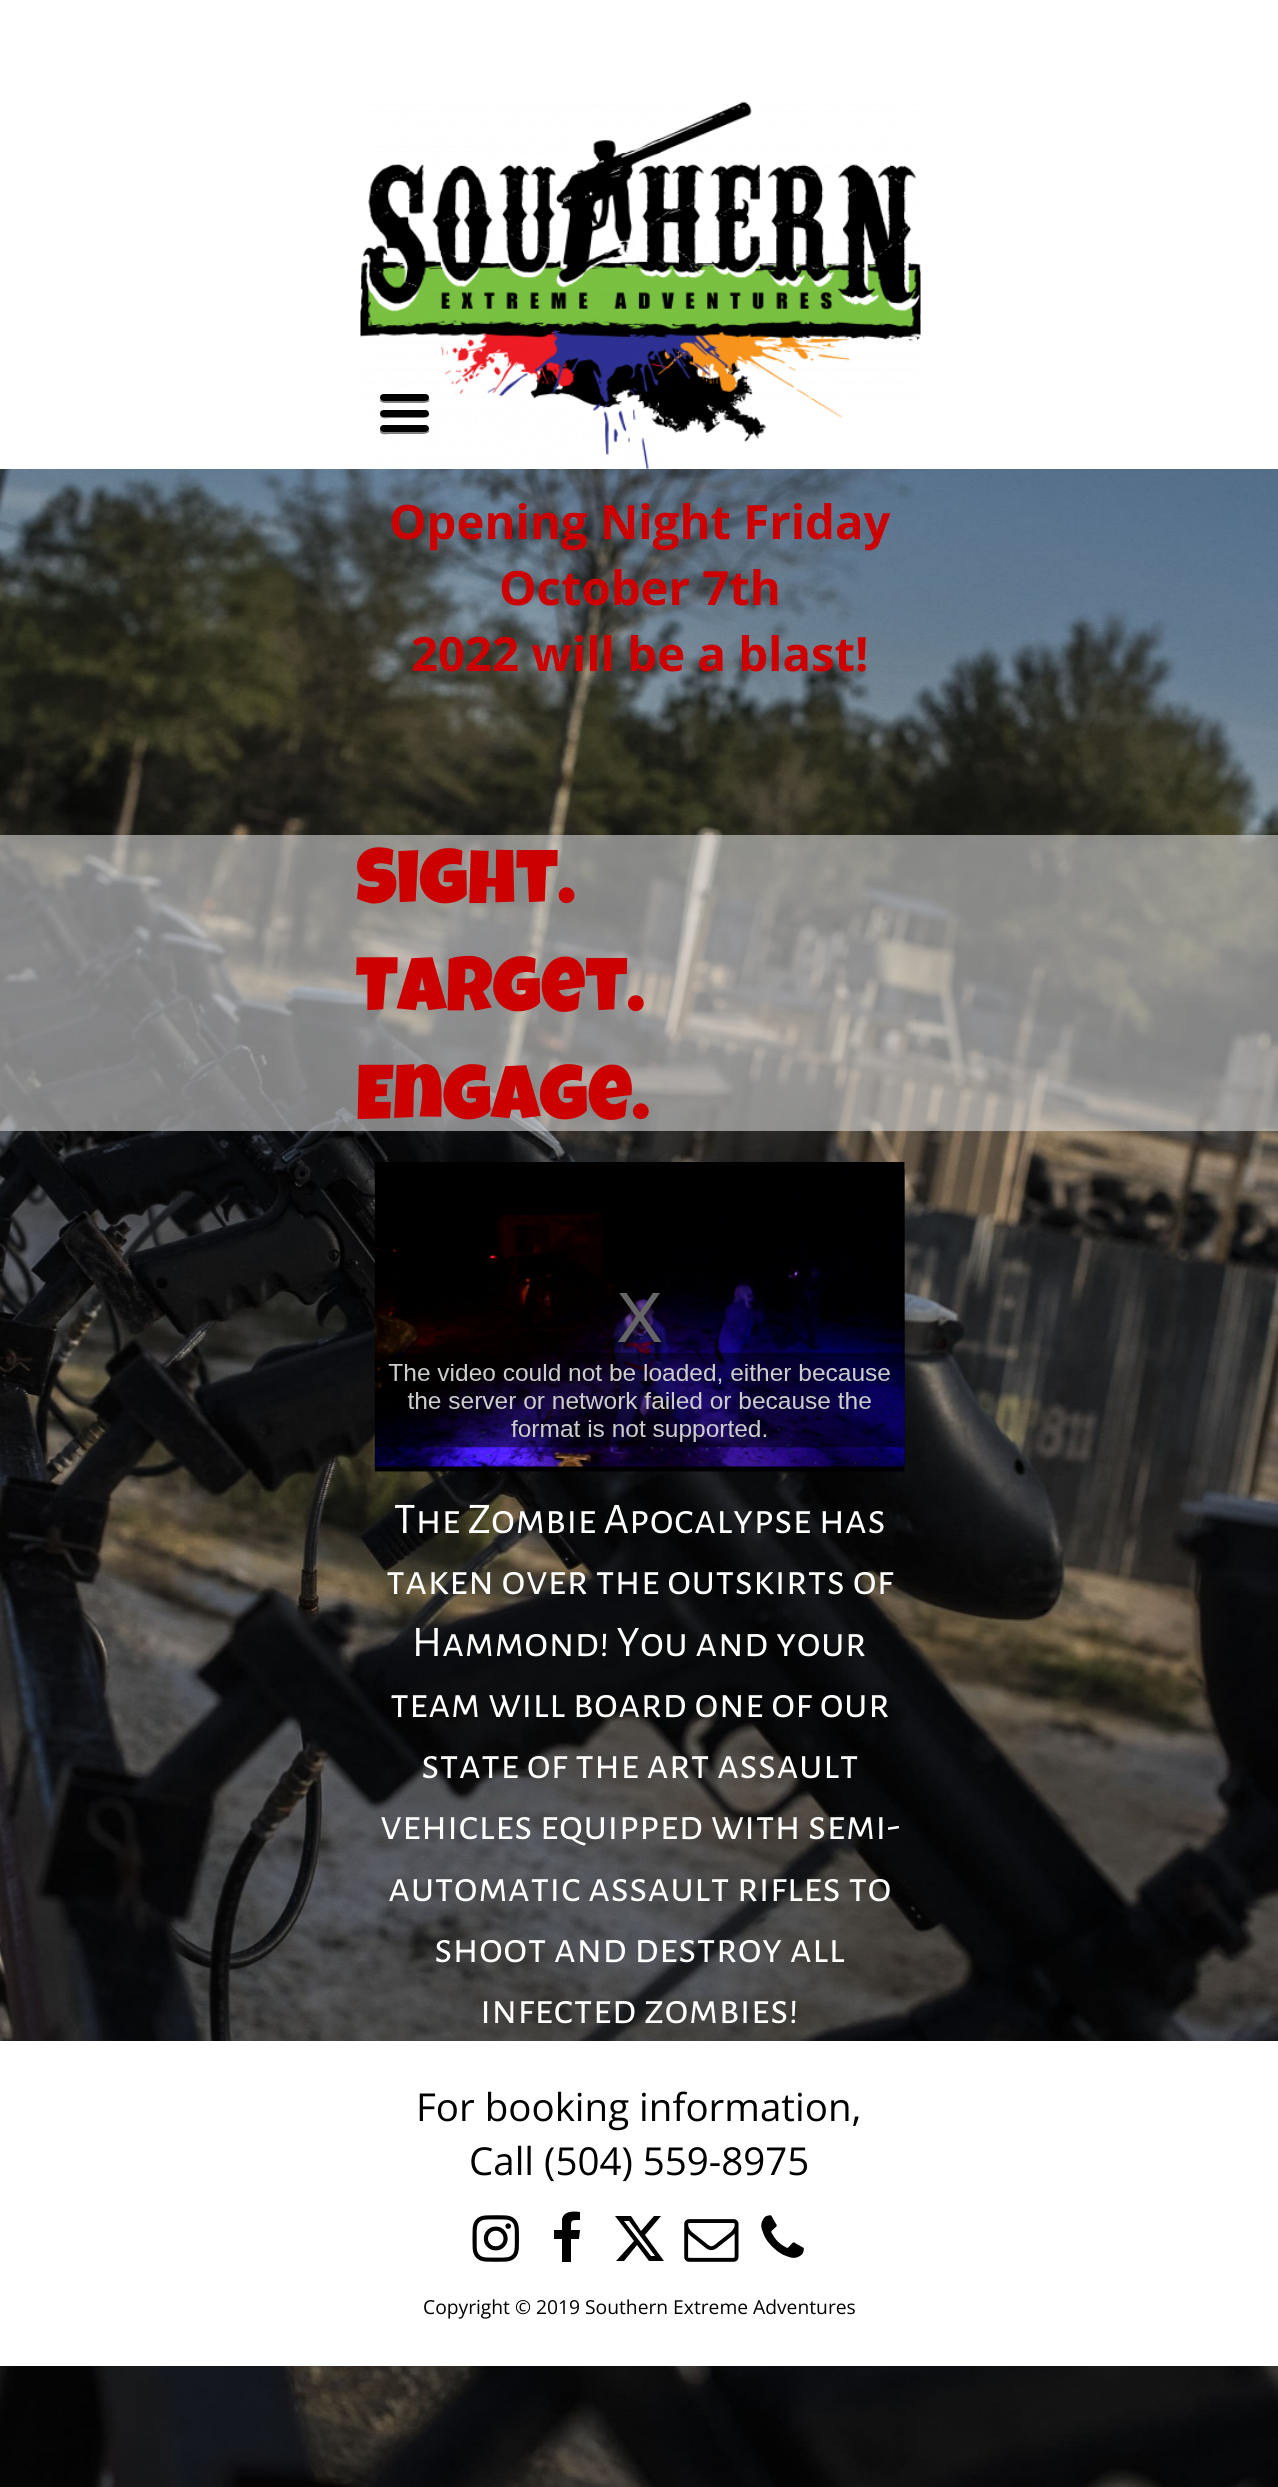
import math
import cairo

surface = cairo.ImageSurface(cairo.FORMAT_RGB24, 1278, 2487)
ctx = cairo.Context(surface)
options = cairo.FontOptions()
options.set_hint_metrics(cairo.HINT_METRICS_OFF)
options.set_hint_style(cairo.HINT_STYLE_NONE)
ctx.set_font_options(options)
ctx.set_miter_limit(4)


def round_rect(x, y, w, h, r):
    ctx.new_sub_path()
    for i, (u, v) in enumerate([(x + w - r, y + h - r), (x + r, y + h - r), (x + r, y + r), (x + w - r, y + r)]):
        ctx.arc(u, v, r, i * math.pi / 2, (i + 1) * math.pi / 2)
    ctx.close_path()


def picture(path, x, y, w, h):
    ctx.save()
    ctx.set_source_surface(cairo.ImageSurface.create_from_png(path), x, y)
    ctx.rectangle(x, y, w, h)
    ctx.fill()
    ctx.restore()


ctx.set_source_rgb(1, 1, 1)
ctx.paint()
picture("img1.png", 0, 469, 1278, 2018)
picture("img2.png", 360, 101, 561, 368)
ctx.set_source_rgb(0.498, 0.498, 0.498)
ctx.new_path()
ctx.move_to(380, 399)
ctx.curve_to(379, 404, 388, 403, 390, 403)
ctx.line_to(418, 403)
ctx.curve_to(420, 403, 432, 404, 429, 398)
ctx.curve_to(428, 400, 427, 401, 425, 401)
ctx.line_to(383, 401)
ctx.curve_to(382, 401, 381, 400, 380, 399)
ctx.close_path()
ctx.fill()
ctx.set_source_rgb(0, 0, 0)
round_rect(380, 394, 49, 7, 3.5)
ctx.fill()
ctx.set_source_rgb(0.498, 0.498, 0.498)
ctx.new_path()
ctx.move_to(380, 414)
ctx.curve_to(380, 420, 388, 418, 390, 418)
ctx.line_to(418, 418)
ctx.curve_to(421, 418, 431, 419, 429, 413)
ctx.curve_to(429, 415, 427, 416, 425, 416)
ctx.line_to(383, 416)
ctx.curve_to(382, 416, 381, 416, 380, 414)
ctx.close_path()
ctx.fill()
ctx.set_source_rgb(0, 0, 0)
round_rect(380, 410, 49, 7, 3.5)
ctx.fill()
ctx.set_source_rgb(0.498, 0.498, 0.498)
ctx.new_path()
ctx.move_to(380, 430)
ctx.curve_to(379, 436, 388, 434, 390, 434)
ctx.line_to(418, 434)
ctx.curve_to(420, 434, 431, 435, 429, 429)
ctx.curve_to(429, 431, 427, 432, 425, 432)
ctx.line_to(383, 432)
ctx.curve_to(382, 432, 381, 431, 380, 430)
ctx.close_path()
ctx.fill()
ctx.set_source_rgb(0, 0, 0)
round_rect(380, 425, 49, 7, 3.5)
ctx.fill()
ctx.select_font_face("Open Sans", cairo.FONT_SLANT_NORMAL, cairo.FONT_WEIGHT_BOLD)
ctx.set_font_size(47.25)
ctx.set_source_rgb(0.8, 0, 0)
ctx.move_to(389, 539)
ctx.show_text("Opening Night Friday")
ctx.move_to(499, 605)
ctx.show_text("October 7th")
ctx.move_to(411, 671)
ctx.show_text("2022 will be a blast!")
ctx.set_source_rgba(0.851, 0.851, 0.851, 0.59)
ctx.rectangle(0, 835, 1278, 296)
ctx.fill()
ctx.select_font_face("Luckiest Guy")
ctx.set_font_size(77)
ctx.set_source_rgb(0.8, 0, 0)
ctx.move_to(356, 903)
ctx.show_text("Sight.")
ctx.move_to(356, 1011)
ctx.show_text("Target.")
ctx.move_to(356, 1119)
ctx.show_text("Engage.")
picture("img3.png", 374, 1162, 531, 310)
ctx.select_font_face("Alegreya Sans SC")
ctx.set_font_size(43.75)
ctx.set_source_rgb(1, 1, 0.996)
ctx.move_to(394, 1533)
ctx.show_text("The Zombie Apocalypse has")
ctx.move_to(386, 1594)
ctx.show_text("taken over the outskirts of")
ctx.move_to(412, 1656)
ctx.show_text("Hammond! You and your")
ctx.move_to(390, 1717)
ctx.show_text("team will board one of our")
ctx.move_to(421, 1778)
ctx.show_text("state of the art assault")
ctx.move_to(380, 1839)
ctx.show_text("vehicles equipped with semi-")
ctx.move_to(388, 1901)
ctx.show_text("automatic assault rifles to")
ctx.move_to(434, 1962)
ctx.show_text("shoot and destroy all")
ctx.move_to(480, 2023)
ctx.show_text("infected zombies!")
ctx.set_source_rgb(1, 1, 1)
ctx.rectangle(0, 2041, 1278, 325)
ctx.fill()
ctx.select_font_face("Open Sans")
ctx.set_font_size(38.5)
ctx.set_source_rgb(0, 0, 0)
ctx.move_to(416, 2121)
ctx.show_text("For booking information,")
ctx.move_to(469, 2175)
ctx.show_text("Call (504) 559-8975")
picture("img4.png", 472, 2215, 47, 47)
ctx.new_path()
ctx.move_to(580, 2212)
ctx.line_to(580, 2220)
ctx.curve_to(570, 2220, 571, 2220, 571, 2230)
ctx.line_to(580, 2230)
ctx.line_to(579, 2239)
ctx.line_to(571, 2239)
ctx.line_to(571, 2262)
ctx.line_to(562, 2262)
ctx.line_to(562, 2239)
ctx.line_to(554, 2239)
ctx.line_to(554, 2230)
ctx.line_to(562, 2230)
ctx.line_to(562, 2219)
ctx.curve_to(564, 2211, 573, 2211, 580, 2212)
ctx.close_path()
ctx.fill()
ctx.new_path()
ctx.move_to(654, 2216)
ctx.line_to(661, 2216)
ctx.line_to(645, 2235)
ctx.line_to(664, 2261)
ctx.line_to(649, 2261)
ctx.line_to(637, 2245)
ctx.line_to(624, 2261)
ctx.line_to(616, 2261)
ctx.line_to(634, 2241)
ctx.line_to(615, 2216)
ctx.line_to(631, 2216)
ctx.line_to(641, 2231)
ctx.close_path()
ctx.move_to(651, 2256)
ctx.line_to(655, 2256)
ctx.line_to(629, 2221)
ctx.line_to(624, 2221)
ctx.close_path()
ctx.fill()
picture("img5.png", 684, 2219, 55, 43)
picture("img6.png", 761, 2215, 43, 43)
ctx.set_font_size(19.25)
ctx.move_to(423, 2314)
ctx.show_text("Copyright © 2019 Southern Extreme Adventures")
surface.write_to_png("page.png")
